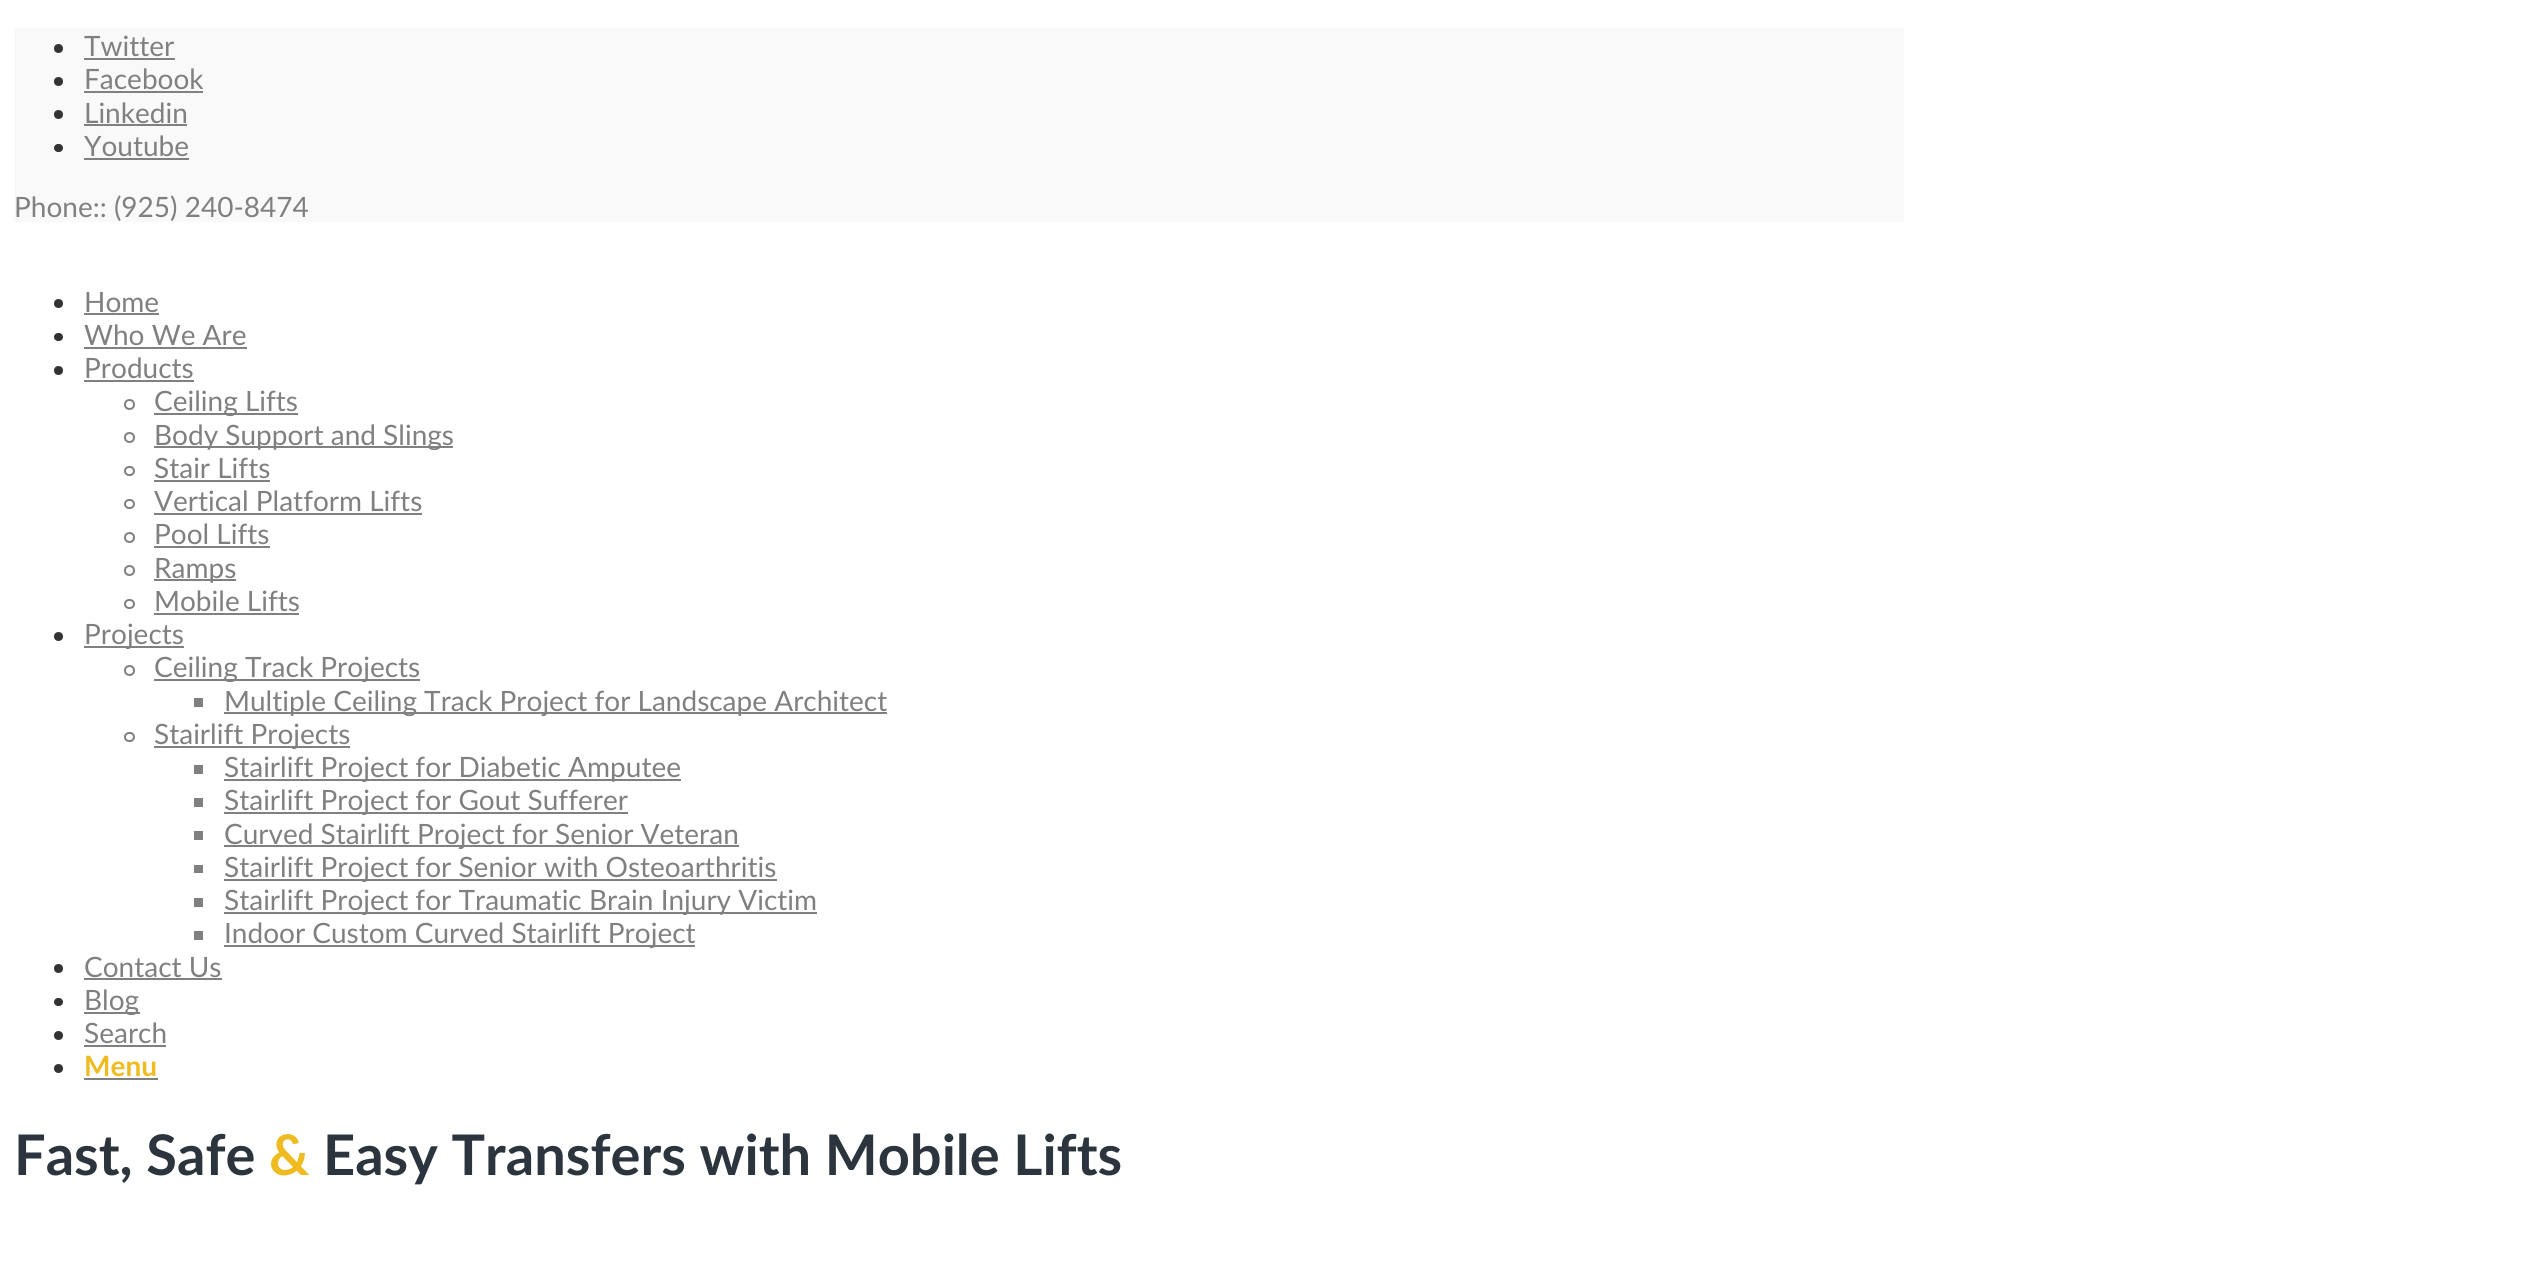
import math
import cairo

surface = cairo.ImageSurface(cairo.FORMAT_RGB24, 2536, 1275)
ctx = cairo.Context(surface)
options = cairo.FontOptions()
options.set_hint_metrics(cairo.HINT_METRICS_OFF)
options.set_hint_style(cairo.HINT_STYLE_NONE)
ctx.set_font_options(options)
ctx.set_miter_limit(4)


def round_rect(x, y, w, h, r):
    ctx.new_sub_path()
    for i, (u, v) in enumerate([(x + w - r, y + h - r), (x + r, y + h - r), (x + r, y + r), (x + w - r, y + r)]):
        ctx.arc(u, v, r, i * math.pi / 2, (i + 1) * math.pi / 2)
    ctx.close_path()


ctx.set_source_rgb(1, 1, 1)
ctx.paint()
ctx.set_source_rgb(0.973, 0.973, 0.973)
ctx.rectangle(14, 28, 1890, 194)
ctx.fill()
ctx.set_source_rgb(0.2, 0.2, 0.2)
ctx.arc(58.5, 48.5, 4.5, 0, 2 * math.pi)
ctx.fill()
ctx.select_font_face("Lato")
ctx.set_font_size(28)
ctx.set_source_rgb(0.502, 0.502, 0.502)
ctx.move_to(84, 56)
ctx.show_text("Twitter")
ctx.rectangle(84, 58, 91, 2)
ctx.fill()
ctx.set_source_rgb(0.2, 0.2, 0.2)
ctx.arc(58.5, 81.5, 4.5, 0, 2 * math.pi)
ctx.fill()
ctx.set_source_rgb(0.502, 0.502, 0.502)
ctx.move_to(84, 89)
ctx.show_text("Facebook")
ctx.rectangle(84, 91, 119, 2)
ctx.fill()
ctx.set_source_rgb(0.2, 0.2, 0.2)
ctx.arc(58.5, 114.5, 4.5, 0, 2 * math.pi)
ctx.fill()
ctx.set_source_rgb(0.502, 0.502, 0.502)
ctx.move_to(84, 123)
ctx.show_text("Linkedin")
ctx.rectangle(84, 124, 103, 2)
ctx.fill()
ctx.set_source_rgb(0.2, 0.2, 0.2)
round_rect(54, 144, 9, 8, 4)
ctx.fill()
ctx.set_source_rgb(0.502, 0.502, 0.502)
ctx.move_to(84, 156)
ctx.show_text("Youtube")
ctx.rectangle(84, 158, 105, 2)
ctx.fill()
ctx.move_to(14, 217)
ctx.show_text("Phone:: (925) 240-8474")
ctx.set_source_rgb(0.2, 0.2, 0.2)
ctx.new_path()
ctx.arc(58.5, 303.5, 4.5, 0, 2 * math.pi)
ctx.fill()
ctx.set_source_rgb(0.502, 0.502, 0.502)
ctx.move_to(84, 312)
ctx.show_text("Home")
ctx.rectangle(84, 313, 75, 2)
ctx.fill()
ctx.set_source_rgb(0.2, 0.2, 0.2)
round_rect(54, 333, 9, 8, 4)
ctx.fill()
ctx.set_source_rgb(0.502, 0.502, 0.502)
ctx.move_to(84, 345)
ctx.show_text("Who We Are")
ctx.rectangle(84, 347, 163, 2)
ctx.fill()
ctx.set_source_rgb(0.2, 0.2, 0.2)
ctx.arc(58.5, 370.5, 4.5, 0, 2 * math.pi)
ctx.fill()
ctx.set_source_rgb(0.502, 0.502, 0.502)
ctx.move_to(84, 378)
ctx.show_text("Products")
ctx.rectangle(84, 380, 110, 2)
ctx.fill()
ctx.arc(129.5, 404.5, 4.5, 0, 2 * math.pi)
ctx.stroke()
ctx.rectangle(154, 413, 144, 2)
ctx.fill()
ctx.move_to(154, 411)
ctx.show_text("Ceiling Lifts")
ctx.new_path()
ctx.arc(129.5, 437.5, 4.5, 0, 2 * math.pi)
ctx.stroke()
ctx.rectangle(154, 446, 299, 2)
ctx.fill()
ctx.move_to(154, 445)
ctx.show_text("Body Support and Slings")
round_rect(125, 467, 9, 8, 4)
ctx.stroke()
ctx.move_to(154, 478)
ctx.show_text("Stair Lifts")
ctx.rectangle(154, 480, 116, 2)
ctx.fill()
round_rect(125, 500, 9, 8, 4)
ctx.stroke()
ctx.move_to(154, 511)
ctx.show_text("Vertical Platform Lifts")
ctx.rectangle(154, 513, 268, 2)
ctx.fill()
ctx.arc(129.5, 537.5, 4.5, 0, 2 * math.pi)
ctx.stroke()
ctx.move_to(154, 544)
ctx.show_text("Pool Lifts")
ctx.rectangle(154, 546, 116, 2)
ctx.fill()
ctx.arc(129.5, 570.5, 4.5, 0, 2 * math.pi)
ctx.stroke()
ctx.rectangle(154, 579, 82, 2)
ctx.fill()
ctx.move_to(154, 578)
ctx.show_text("Ramps")
round_rect(125, 600, 9, 8, 4)
ctx.stroke()
ctx.move_to(154, 611)
ctx.show_text("Mobile Lifts")
ctx.rectangle(154, 613, 145, 2)
ctx.fill()
ctx.set_source_rgb(0.2, 0.2, 0.2)
ctx.arc(58.5, 636.5, 4.5, 0, 2 * math.pi)
ctx.fill()
ctx.set_source_rgb(0.502, 0.502, 0.502)
ctx.rectangle(84, 646, 100, 2)
ctx.fill()
ctx.move_to(84, 644)
ctx.show_text("Projects")
ctx.new_path()
ctx.arc(129.5, 670.5, 4.5, 0, 2 * math.pi)
ctx.stroke()
ctx.rectangle(154, 679, 266, 2)
ctx.fill()
ctx.move_to(154, 677)
ctx.show_text("Ceiling Track Projects")
ctx.rectangle(194, 698, 9, 9)
ctx.fill()
ctx.rectangle(224, 712, 663, 2)
ctx.fill()
ctx.move_to(224, 711)
ctx.show_text("Multiple Ceiling Track Project for Landscape Architect")
round_rect(125, 733, 9, 8, 4)
ctx.stroke()
ctx.rectangle(154, 746, 196, 2)
ctx.fill()
ctx.move_to(154, 744)
ctx.show_text("Stairlift Projects")
ctx.rectangle(194, 765, 9, 9)
ctx.fill()
ctx.rectangle(224, 779, 457, 2)
ctx.fill()
ctx.move_to(224, 777)
ctx.show_text("Stairlift Project for Diabetic Amputee")
ctx.set_source_rgb(1, 1, 1)
ctx.rectangle(293, 749, 2, 1)
ctx.fill()
ctx.set_source_rgb(0.502, 0.502, 0.502)
ctx.rectangle(194, 798, 9, 9)
ctx.fill()
ctx.rectangle(224, 812, 404, 2)
ctx.fill()
ctx.move_to(224, 810)
ctx.show_text("Stairlift Project for Gout Sufferer")
ctx.set_source_rgb(1, 1, 1)
ctx.rectangle(363, 782, 2, 1)
ctx.fill()
ctx.set_source_rgb(0.502, 0.502, 0.502)
ctx.rectangle(194, 831, 9, 9)
ctx.fill()
ctx.rectangle(224, 845, 515, 2)
ctx.fill()
ctx.move_to(224, 844)
ctx.show_text("Curved Stairlift Project for Senior Veteran")
ctx.rectangle(194, 865, 9, 8)
ctx.fill()
ctx.rectangle(224, 879, 553, 2)
ctx.fill()
ctx.move_to(224, 877)
ctx.show_text("Stairlift Project for Senior with Osteoarthritis")
ctx.set_source_rgb(1, 1, 1)
ctx.rectangle(460, 849, 1, 1)
ctx.fill()
ctx.set_source_rgb(0.502, 0.502, 0.502)
ctx.rectangle(194, 898, 9, 9)
ctx.fill()
ctx.rectangle(224, 912, 593, 2)
ctx.fill()
ctx.move_to(224, 910)
ctx.show_text("Stairlift Project for Traumatic Brain Injury Victim")
ctx.set_source_rgb(1, 1, 1)
ctx.rectangle(363, 882, 2, 1)
ctx.fill()
ctx.set_source_rgb(0.502, 0.502, 0.502)
ctx.rectangle(194, 931, 9, 9)
ctx.fill()
ctx.rectangle(224, 945, 471, 2)
ctx.fill()
ctx.move_to(224, 943)
ctx.show_text("Indoor Custom Curved Stairlift Project")
ctx.set_source_rgb(1, 1, 1)
ctx.rectangle(363, 915, 323, 1)
ctx.fill()
ctx.set_source_rgb(0.2, 0.2, 0.2)
ctx.arc(58.5, 968.5, 4.5, 0, 2 * math.pi)
ctx.fill()
ctx.set_source_rgb(0.502, 0.502, 0.502)
ctx.move_to(84, 977)
ctx.show_text("Contact Us")
ctx.rectangle(84, 978, 138, 2)
ctx.fill()
ctx.set_source_rgb(0.2, 0.2, 0.2)
round_rect(54, 998, 9, 8, 4)
ctx.fill()
ctx.set_source_rgb(0.502, 0.502, 0.502)
ctx.rectangle(84, 1012, 56, 2)
ctx.fill()
ctx.move_to(84, 1010)
ctx.show_text("Blog")
ctx.set_source_rgb(0.2, 0.2, 0.2)
ctx.new_path()
ctx.arc(58.5, 1035.5, 4.5, 0, 2 * math.pi)
ctx.fill()
ctx.set_source_rgb(0.502, 0.502, 0.502)
ctx.move_to(84, 1043)
ctx.show_text("Search")
ctx.rectangle(84, 1045, 82, 2)
ctx.fill()
ctx.set_source_rgb(0.2, 0.2, 0.2)
ctx.arc(58.5, 1068.5, 4.5, 0, 2 * math.pi)
ctx.fill()
ctx.select_font_face("Lato", cairo.FONT_SLANT_NORMAL, cairo.FONT_WEIGHT_BOLD)
ctx.set_source_rgb(0.937, 0.733, 0.125)
ctx.move_to(84, 1076)
ctx.show_text("Menu")
ctx.set_source_rgb(0.502, 0.502, 0.502)
ctx.rectangle(84, 1078, 74, 2)
ctx.fill()
ctx.set_font_size(56)
ctx.set_source_rgb(0.173, 0.208, 0.239)
ctx.move_to(14, 1175)
ctx.show_text("Fast, Safe")
ctx.set_source_rgb(0.937, 0.733, 0.125)
ctx.move_to(269, 1175)
ctx.show_text("&")
ctx.set_source_rgb(0.173, 0.208, 0.239)
ctx.move_to(323, 1175)
ctx.show_text("Easy Transfers with Mobile Lifts")
surface.write_to_png("page.png")
